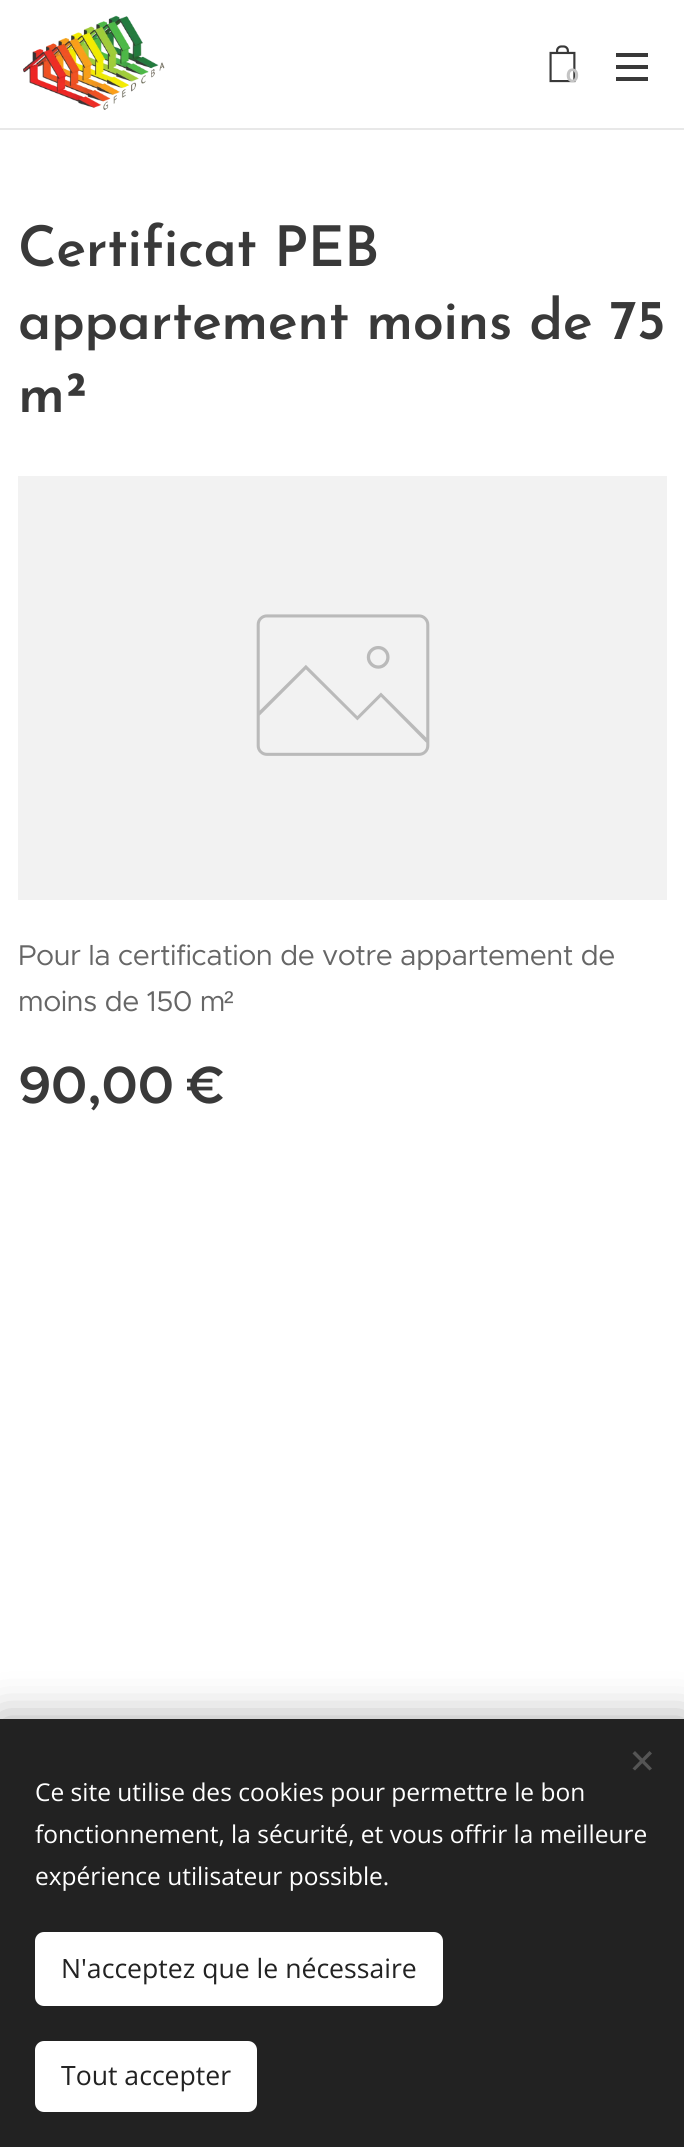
import math
import cairo

surface = cairo.ImageSurface(cairo.FORMAT_RGB24, 684, 2147)
ctx = cairo.Context(surface)
options = cairo.FontOptions()
options.set_hint_metrics(cairo.HINT_METRICS_OFF)
options.set_hint_style(cairo.HINT_STYLE_NONE)
ctx.set_font_options(options)
ctx.set_miter_limit(4)


def spaced_text(x, y, s, letter, word):
    ctx.move_to(x, y)
    for ch in s:
        ctx.show_text(ch)
        ctx.rel_move_to(letter + word * (ch == ' '), 0)


def round_rect(x, y, w, h, r):
    ctx.new_sub_path()
    for i, (u, v) in enumerate([(x + w - r, y + h - r), (x + r, y + h - r), (x + r, y + r), (x + w - r, y + r)]):
        ctx.arc(u, v, r, i * math.pi / 2, (i + 1) * math.pi / 2)
    ctx.close_path()


def shadow(x, y, w, h, r, blur, alpha):
    ctx.push_group_with_content(cairo.CONTENT_ALPHA)
    ctx.set_operator(cairo.OPERATOR_SOURCE)
    for i in range(15, -16, -2):
        e = blur * i / 6
        if min(w, h) + 2 * e > 0:
            ctx.set_source_rgba(0, 0, 0, alpha * math.erfc((i - 1) / 8.5) / 2)
            round_rect(x - e, y - e, w + 2 * e, h + 2 * e, max(0, min(r + e + blur * .6, min(w, h) / 2 + e)))
            ctx.fill()
    ctx.mask(ctx.pop_group())


def picture(path, x, y, w, h):
    ctx.save()
    ctx.set_source_surface(cairo.ImageSurface.create_from_png(path), x, y)
    ctx.rectangle(x, y, w, h)
    ctx.fill()
    ctx.restore()


ctx.set_source_rgb(1, 1, 1)
ctx.paint()
picture("img1.png", 23, 15, 142, 95)
picture("img2.png", 549, 45, 27, 38)
ctx.select_font_face("Montserrat", cairo.FONT_SLANT_NORMAL, cairo.FONT_WEIGHT_BOLD)
ctx.set_font_size(19)
ctx.set_source_rgb(0.769, 0.769, 0.769)
ctx.move_to(566, 82)
ctx.show_text("0")
ctx.set_source_rgb(0.224, 0.224, 0.224)
ctx.rectangle(616, 65, 32, 4)
ctx.fill()
ctx.rectangle(616, 53, 32, 4)
ctx.fill()
ctx.rectangle(616, 77, 32, 4)
ctx.fill()
ctx.set_source_rgb(0.91, 0.91, 0.91)
ctx.rectangle(0, 128, 684, 2)
ctx.fill()
ctx.select_font_face("Josefin Sans SemiBold")
ctx.set_font_size(56)
ctx.set_source_rgb(0.224, 0.224, 0.224)
spaced_text(18, 266, "Certificat PEB", -0.55, 0)
spaced_text(18, 339, "appartement moins de 75", -0.55, 0)
spaced_text(18, 412, "m²", -0.55, 0)
ctx.set_source_rgb(0.949, 0.949, 0.949)
ctx.rectangle(18, 476, 649, 424)
ctx.fill()
picture("img3.png", 256, 614, 174, 142)
ctx.select_font_face("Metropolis")
ctx.set_font_size(28.7)
ctx.set_source_rgb(0.4, 0.4, 0.4)
spaced_text(18, 965, "Pour la certification de votre appartement de", -0.55, 0)
spaced_text(18, 1011, "moins de 150 m", -0.55, 0)
ctx.select_font_face("Liberation Sans")
spaced_text(224, 1011, "²", -0.55, 0)
ctx.select_font_face("Metropolis SemiBold")
ctx.set_font_size(52.5)
ctx.set_source_rgb(0.224, 0.224, 0.224)
spaced_text(18, 1103, "90,00 €", -0.55, 0)
ctx.set_source_rgb(0, 0, 0)
shadow(0, 1719, 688, 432, 0, 22, 0.33)
ctx.set_source_rgb(0.133, 0.133, 0.133)
ctx.rectangle(0, 1719, 684, 428)
ctx.fill()
ctx.set_source_rgb(0.333, 0.333, 0.333)
ctx.new_path()
ctx.move_to(632.5, 1768.5)
ctx.line_to(649.5, 1751)
ctx.line_to(652, 1753.5)
ctx.line_to(635, 1770.5)
ctx.close_path()
ctx.fill()
ctx.new_path()
ctx.move_to(635, 1751)
ctx.line_to(652, 1768.5)
ctx.line_to(649.5, 1770.5)
ctx.line_to(632.5, 1753.5)
ctx.close_path()
ctx.fill()
ctx.select_font_face("Open Sans")
ctx.set_font_size(24.5)
ctx.set_source_rgb(1, 1, 1)
ctx.move_to(35, 1801)
ctx.show_text("Ce site utilise des cookies pour permettre le bon")
ctx.move_to(35, 1843)
ctx.show_text("fonctionnement, la sécurité, et vous offrir la meilleure")
ctx.move_to(35, 1885)
ctx.show_text("expérience utilisateur possible.")
round_rect(35, 1932, 408, 74, 9)
ctx.fill()
ctx.set_font_size(26.6)
ctx.set_source_rgb(0.133, 0.133, 0.133)
ctx.move_to(61, 1978)
ctx.show_text("N'acceptez que le nécessaire")
ctx.set_source_rgb(1, 1, 1)
round_rect(35, 2041, 222, 71, 9)
ctx.fill()
ctx.set_source_rgb(0.133, 0.133, 0.133)
ctx.move_to(61, 2085)
ctx.show_text("Tout accepter")
surface.write_to_png("page.png")
